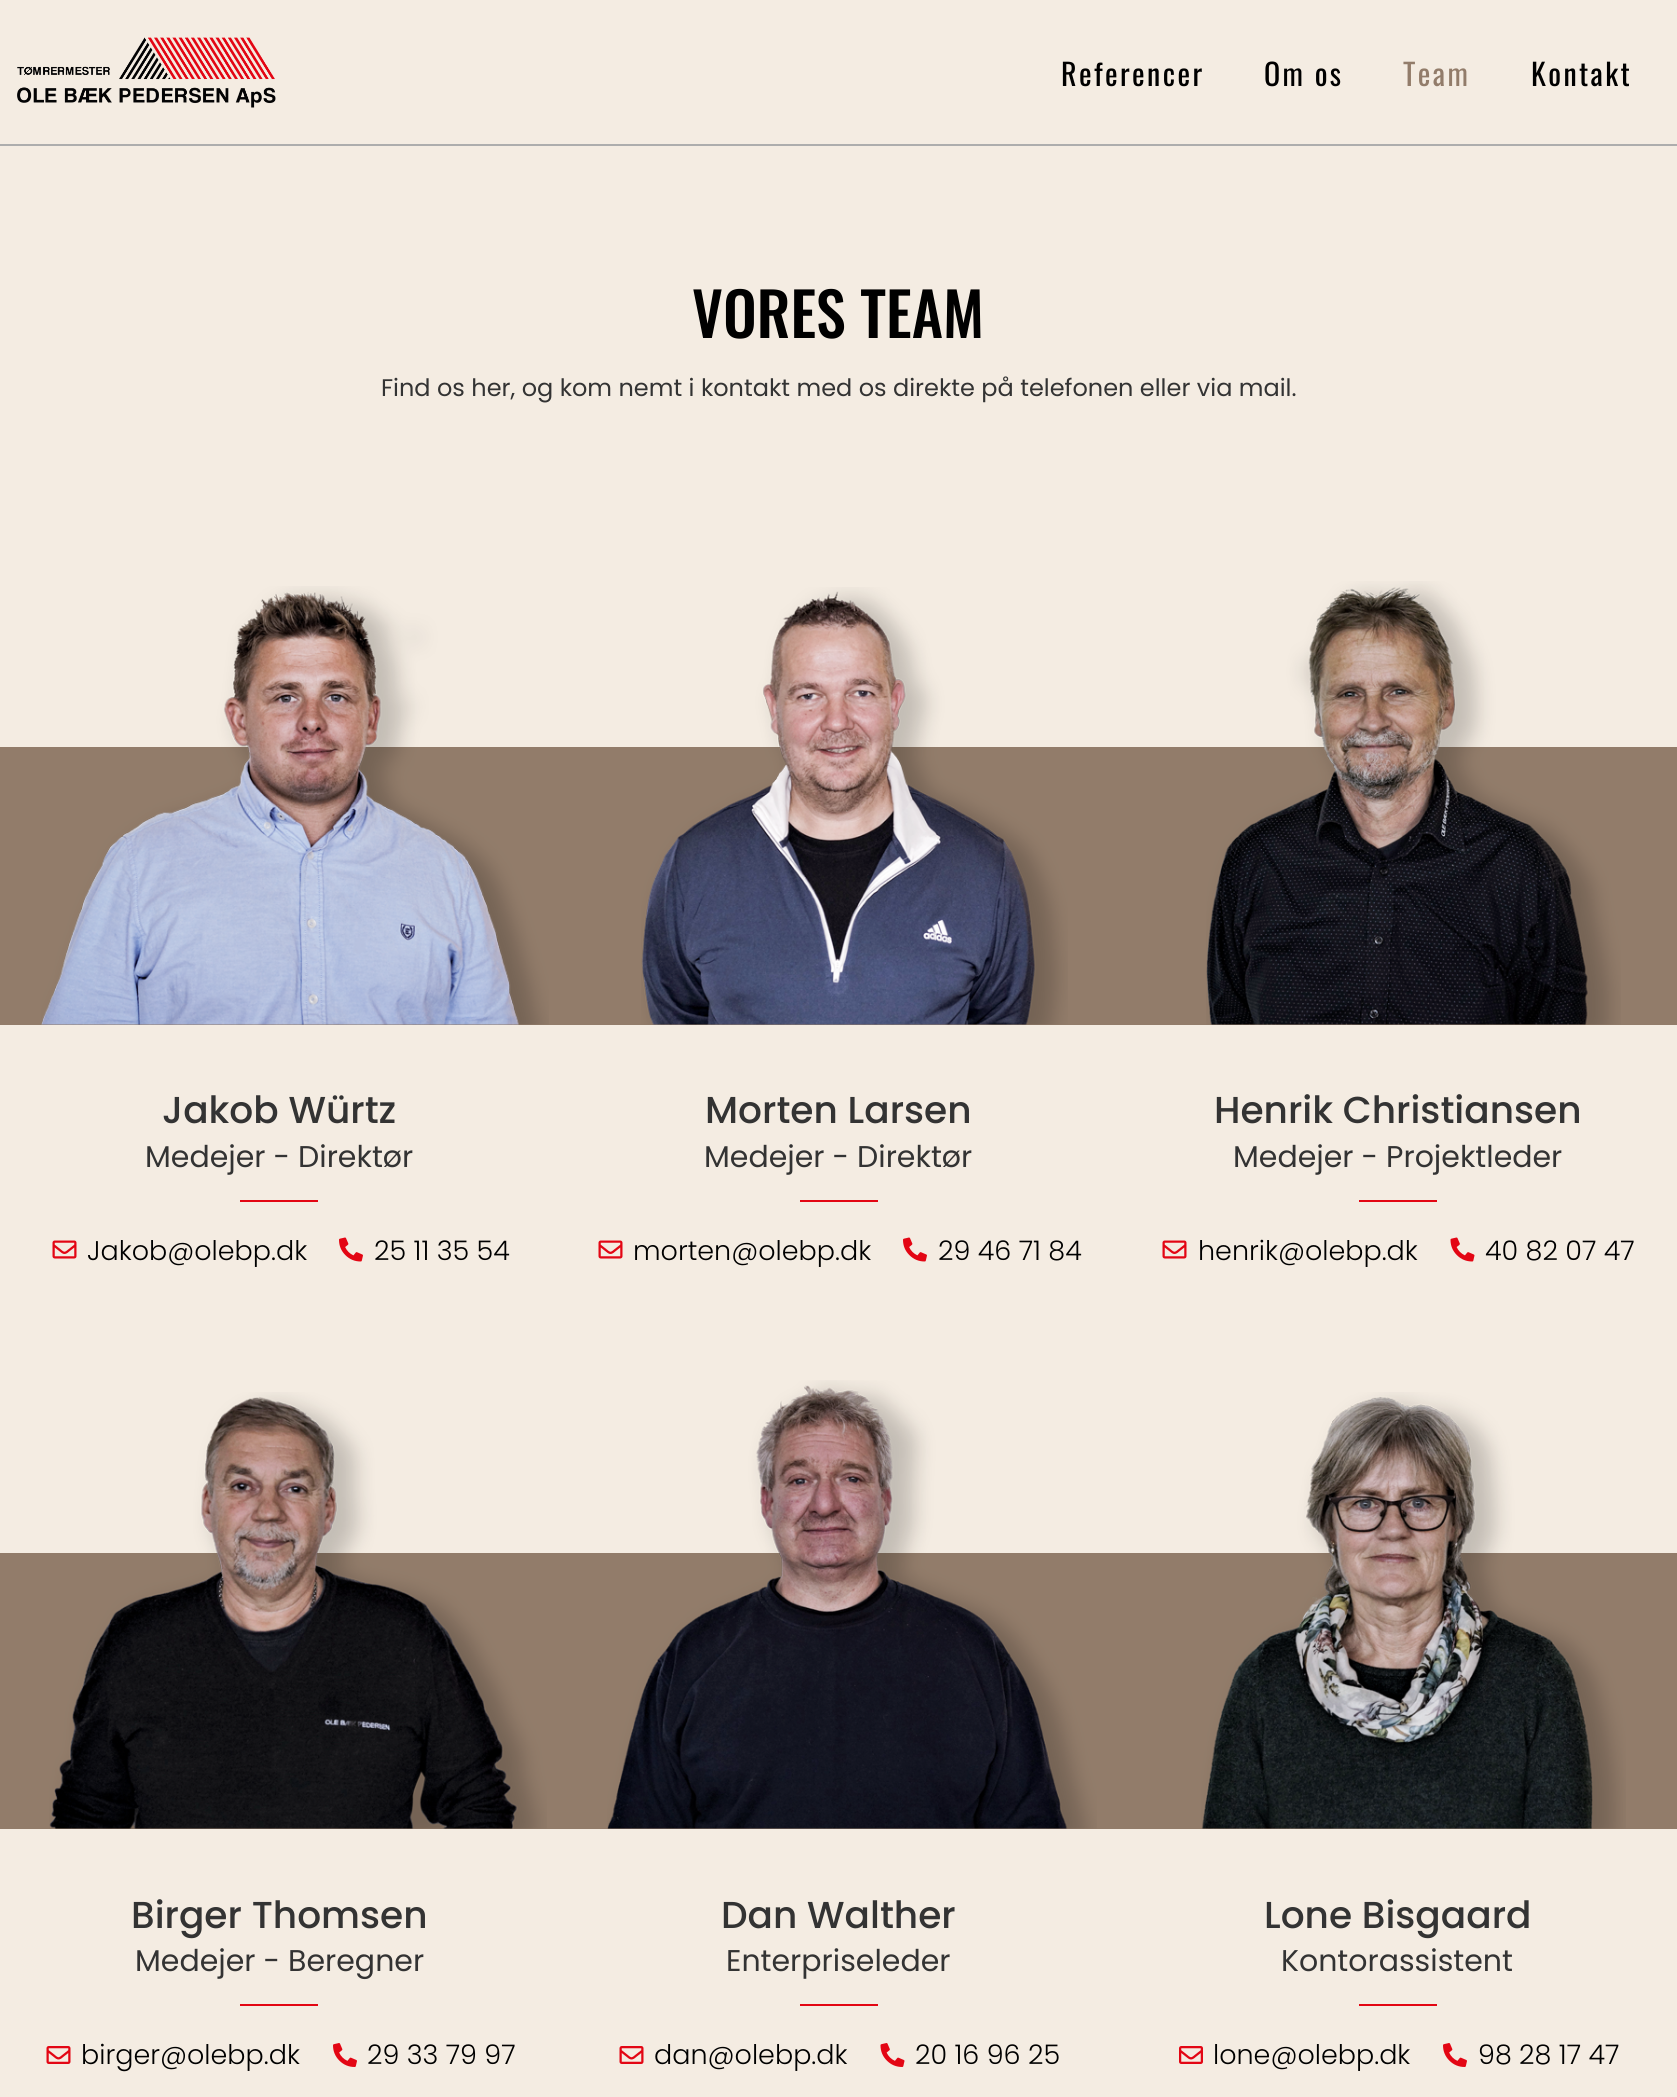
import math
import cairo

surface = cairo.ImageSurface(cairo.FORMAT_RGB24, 1677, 2097)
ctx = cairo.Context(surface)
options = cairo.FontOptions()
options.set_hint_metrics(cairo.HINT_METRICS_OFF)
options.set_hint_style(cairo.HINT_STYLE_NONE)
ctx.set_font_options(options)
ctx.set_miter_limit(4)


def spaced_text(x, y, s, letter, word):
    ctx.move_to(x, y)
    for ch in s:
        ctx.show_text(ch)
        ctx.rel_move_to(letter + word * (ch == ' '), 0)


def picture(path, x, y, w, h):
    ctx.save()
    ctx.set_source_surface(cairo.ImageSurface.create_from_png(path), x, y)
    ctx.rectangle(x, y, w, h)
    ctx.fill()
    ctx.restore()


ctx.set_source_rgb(0.957, 0.925, 0.886)
ctx.paint()
ctx.set_source_rgb(0.678, 0.678, 0.678)
ctx.rectangle(0, 144, 1677, 2)
ctx.fill()
picture("img1.png", 17, 37, 259, 71)
ctx.select_font_face("Oswald")
ctx.set_font_size(30)
ctx.set_source_rgb(0, 0, 0)
spaced_text(1061, 86, "Referencer", 2.4, 0)
spaced_text(1264, 86, "Om os", 2.4, 0)
ctx.set_source_rgb(0.573, 0.486, 0.416)
spaced_text(1403, 86, "Team", 2.4, 0)
ctx.set_source_rgb(0, 0, 0)
spaced_text(1531, 86, "Kontakt", 2.4, 0)
ctx.select_font_face("Oswald Medium")
ctx.set_font_size(60)
ctx.move_to(692, 338)
ctx.show_text("VORES TEAM")
ctx.select_font_face("Poppins")
ctx.set_font_size(24)
ctx.set_source_rgb(0.2, 0.2, 0.2)
ctx.move_to(381, 396)
ctx.show_text("Find os her, og kom nemt i kontakt med os direkte på telefonen eller via mail.")
ctx.set_source_rgb(0.573, 0.486, 0.416)
ctx.rectangle(0, 747, 1677, 278)
ctx.fill()
picture("img2.png", 41, 586, 508, 439)
picture("img3.png", 641, 587, 427, 438)
picture("img4.png", 1206, 581, 415, 444)
ctx.select_font_face("Poppins Medium")
ctx.set_font_size(37.5)
ctx.set_source_rgb(0.2, 0.2, 0.2)
ctx.move_to(162, 1123)
ctx.show_text("Jakob Würtz")
ctx.select_font_face("Poppins")
ctx.set_font_size(30)
ctx.move_to(145, 1167)
ctx.show_text("Medejer - Direktør")
ctx.set_source_rgb(0.89, 0.024, 0.078)
ctx.rectangle(240, 1200, 78, 2)
ctx.fill()
picture("img5.png", 52, 1240, 25, 19)
ctx.select_font_face("Poppins Light")
ctx.set_font_size(27)
ctx.set_source_rgb(0, 0, 0)
ctx.move_to(87, 1260)
ctx.show_text("Jakob@olebp.dk")
picture("img6.png", 339, 1237, 24, 25)
ctx.move_to(374, 1260)
ctx.show_text("25 11 35 54")
ctx.select_font_face("Poppins Medium")
ctx.set_font_size(37.5)
ctx.set_source_rgb(0.2, 0.2, 0.2)
ctx.move_to(705, 1123)
ctx.show_text("Morten Larsen")
ctx.select_font_face("Poppins")
ctx.set_font_size(30)
ctx.move_to(704, 1167)
ctx.show_text("Medejer - Direktør")
ctx.set_source_rgb(0.89, 0.024, 0.078)
ctx.rectangle(800, 1200, 78, 2)
ctx.fill()
picture("img5.png", 598, 1240, 25, 19)
ctx.select_font_face("Poppins Light")
ctx.set_font_size(27)
ctx.set_source_rgb(0, 0, 0)
ctx.move_to(633, 1260)
ctx.show_text("morten@olebp.dk")
picture("img6.png", 903, 1237, 24, 25)
ctx.move_to(938, 1260)
ctx.show_text("29 46 71 84")
ctx.select_font_face("Poppins Medium")
ctx.set_font_size(37.5)
ctx.set_source_rgb(0.2, 0.2, 0.2)
ctx.move_to(1214, 1123)
ctx.show_text("Henrik Christiansen")
ctx.select_font_face("Poppins")
ctx.set_font_size(30)
ctx.move_to(1233, 1167)
ctx.show_text("Medejer - Projektleder")
ctx.set_source_rgb(0.89, 0.024, 0.078)
ctx.rectangle(1359, 1200, 78, 2)
ctx.fill()
picture("img5.png", 1162, 1240, 25, 19)
ctx.select_font_face("Poppins Light")
ctx.set_font_size(27)
ctx.set_source_rgb(0, 0, 0)
ctx.move_to(1198, 1260)
ctx.show_text("henrik@olebp.dk")
picture("img7.png", 1450, 1237, 25, 25)
ctx.move_to(1485, 1260)
ctx.show_text("40 82 07 47")
ctx.set_source_rgb(0.573, 0.486, 0.416)
ctx.rectangle(0, 1553, 1677, 276)
ctx.fill()
picture("img8.png", 49, 1392, 498, 437)
picture("img9.png", 607, 1380, 490, 449)
picture("img10.png", 1201, 1392, 425, 437)
ctx.select_font_face("Poppins Medium")
ctx.set_font_size(37.5)
ctx.set_source_rgb(0.2, 0.2, 0.2)
ctx.move_to(131, 1928)
ctx.show_text("Birger Thomsen")
ctx.select_font_face("Poppins")
ctx.set_font_size(30)
ctx.move_to(135, 1971)
ctx.show_text("Medejer - Beregner")
ctx.set_source_rgb(0.89, 0.024, 0.078)
ctx.rectangle(240, 2004, 78, 2)
ctx.fill()
picture("img11.png", 46, 2046, 25, 18)
ctx.select_font_face("Poppins Light")
ctx.set_font_size(27)
ctx.set_source_rgb(0, 0, 0)
ctx.move_to(81, 2064)
ctx.show_text("birger@olebp.dk")
picture("img12.png", 333, 2043, 24, 24)
ctx.move_to(367, 2064)
ctx.show_text("29 33 79 97")
ctx.select_font_face("Poppins Medium")
ctx.set_font_size(37.5)
ctx.set_source_rgb(0.2, 0.2, 0.2)
ctx.move_to(721, 1928)
ctx.show_text("Dan Walther")
ctx.select_font_face("Poppins")
ctx.set_font_size(30)
ctx.move_to(726, 1971)
ctx.show_text("Enterpriseleder")
ctx.set_source_rgb(0.89, 0.024, 0.078)
ctx.rectangle(800, 2004, 78, 2)
ctx.fill()
picture("img11.png", 619, 2046, 25, 18)
ctx.select_font_face("Poppins Light")
ctx.set_font_size(27)
ctx.set_source_rgb(0, 0, 0)
ctx.move_to(654, 2064)
ctx.show_text("dan@olebp.dk")
picture("img13.png", 880, 2043, 25, 24)
ctx.move_to(915, 2064)
ctx.show_text("20 16 96 25")
ctx.select_font_face("Poppins Medium")
ctx.set_font_size(37.5)
ctx.set_source_rgb(0.2, 0.2, 0.2)
ctx.move_to(1264, 1928)
ctx.show_text("Lone Bisgaard")
ctx.select_font_face("Poppins")
ctx.set_font_size(30)
ctx.move_to(1281, 1971)
ctx.show_text("Kontorassistent")
ctx.set_source_rgb(0.89, 0.024, 0.078)
ctx.rectangle(1359, 2004, 78, 2)
ctx.fill()
picture("img14.png", 1179, 2046, 24, 18)
ctx.select_font_face("Poppins Light")
ctx.set_font_size(27)
ctx.set_source_rgb(0, 0, 0)
ctx.move_to(1213, 2064)
ctx.show_text("lone@olebp.dk")
picture("img12.png", 1443, 2043, 24, 24)
ctx.move_to(1478, 2064)
ctx.show_text("98 28 17 47")
surface.write_to_png("page.png")
